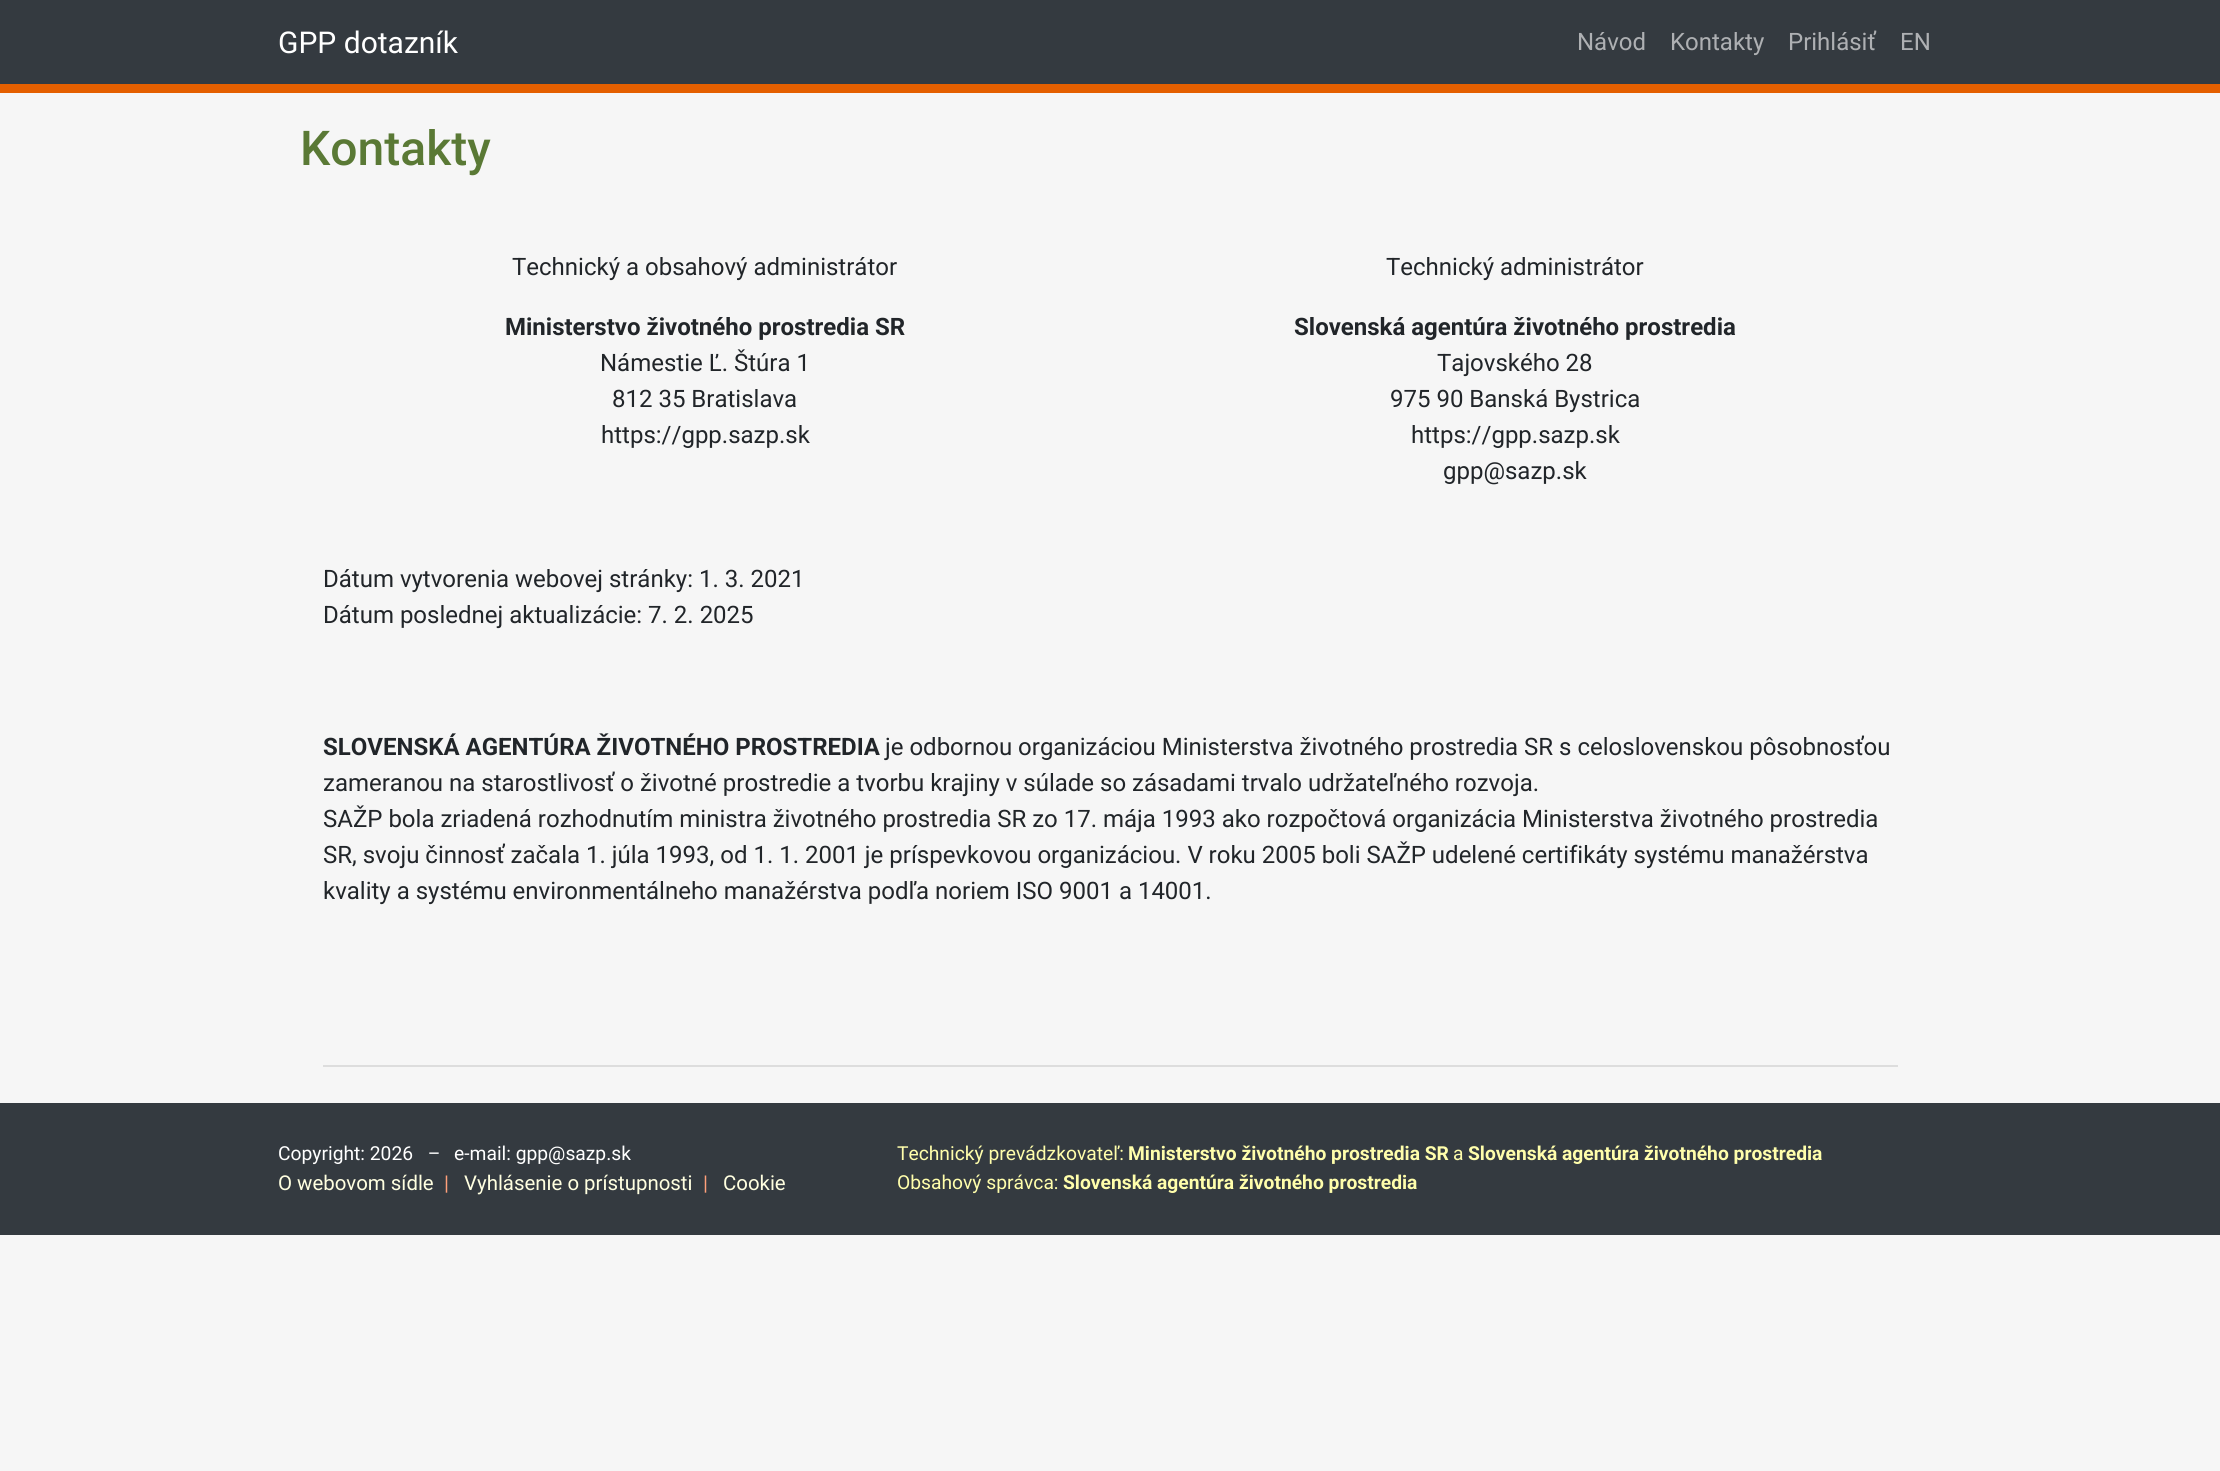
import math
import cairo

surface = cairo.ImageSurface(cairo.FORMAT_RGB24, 2220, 1471)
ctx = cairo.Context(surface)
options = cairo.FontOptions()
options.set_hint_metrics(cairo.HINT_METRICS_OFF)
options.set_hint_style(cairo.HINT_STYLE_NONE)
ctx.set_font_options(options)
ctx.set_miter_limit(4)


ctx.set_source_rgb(0.961, 0.961, 0.961)
ctx.paint()
ctx.set_source_rgb(0.204, 0.227, 0.251)
ctx.rectangle(0, 0, 2220, 84)
ctx.fill()
ctx.set_source_rgb(0.894, 0.373, 0)
ctx.rectangle(0, 84, 2220, 9)
ctx.fill()
ctx.select_font_face("Roboto")
ctx.set_font_size(30)
ctx.set_source_rgb(1, 1, 1)
ctx.move_to(278, 53)
ctx.show_text("GPP dotazník")
ctx.set_font_size(24)
ctx.set_source_rgb(0.682, 0.69, 0.702)
ctx.move_to(1577, 50)
ctx.show_text("Návod")
ctx.move_to(1670, 50)
ctx.show_text("Kontakty")
ctx.move_to(1788, 50)
ctx.show_text("Prihlásiť")
ctx.move_to(1900, 50)
ctx.show_text("EN")
ctx.select_font_face("Roboto Medium")
ctx.set_font_size(48)
ctx.set_source_rgb(0.353, 0.475, 0.208)
ctx.move_to(300, 165)
ctx.show_text("Kontakty")
ctx.select_font_face("Roboto")
ctx.set_font_size(24)
ctx.set_source_rgb(0.129, 0.145, 0.161)
ctx.move_to(512, 275)
ctx.show_text("Technický a obsahový administrátor")
ctx.select_font_face("Roboto", cairo.FONT_SLANT_NORMAL, cairo.FONT_WEIGHT_BOLD)
ctx.move_to(505, 335)
ctx.show_text("Ministerstvo životného prostredia SR")
ctx.select_font_face("Roboto")
ctx.move_to(600, 371)
ctx.show_text("Námestie Ľ. Štúra 1")
ctx.move_to(612, 407)
ctx.show_text("812 35 Bratislava")
ctx.move_to(601, 443)
ctx.show_text("https://gpp.sazp.sk")
ctx.move_to(1386, 275)
ctx.show_text("Technický administrátor")
ctx.select_font_face("Roboto", cairo.FONT_SLANT_NORMAL, cairo.FONT_WEIGHT_BOLD)
ctx.move_to(1294, 335)
ctx.show_text("Slovenská agentúra životného prostredia")
ctx.select_font_face("Roboto")
ctx.move_to(1437, 371)
ctx.show_text("Tajovského 28")
ctx.move_to(1390, 407)
ctx.show_text("975 90 Banská Bystrica")
ctx.move_to(1411, 443)
ctx.show_text("https://gpp.sazp.sk")
ctx.move_to(1443, 479)
ctx.show_text("gpp@sazp.sk")
ctx.move_to(323, 587)
ctx.show_text("Dátum vytvorenia webovej stránky: 1. 3. 2021")
ctx.move_to(323, 623)
ctx.show_text("Dátum poslednej aktualizácie: 7. 2. 2025")
ctx.select_font_face("Roboto", cairo.FONT_SLANT_NORMAL, cairo.FONT_WEIGHT_BOLD)
ctx.move_to(323, 755)
ctx.show_text("SLOVENSKÁ AGENTÚRA ŽIVOTNÉHO PROSTREDIA")
ctx.select_font_face("Roboto")
ctx.move_to(885, 755)
ctx.show_text("je odbornou organizáciou Ministerstva životného prostredia SR s celoslovenskou pôsobnosťou")
ctx.move_to(323, 791)
ctx.show_text("zameranou na starostlivosť o životné prostredie a tvorbu krajiny v súlade so zásadami trvalo udržateľného rozvoja.")
ctx.move_to(323, 827)
ctx.show_text("SAŽP bola zriadená rozhodnutím ministra životného prostredia SR zo 17. mája 1993 ako rozpočtová organizácia Ministerstva životného prostredia")
ctx.move_to(323, 863)
ctx.show_text("SR, svoju činnosť začala 1. júla 1993, od 1. 1. 2001 je príspevkovou organizáciou. V roku 2005 boli SAŽP udelené certifikáty systému manažérstva")
ctx.move_to(323, 899)
ctx.show_text("kvality a systému environmentálneho manažérstva podľa noriem ISO 9001 a 14001.")
ctx.set_source_rgb(0.867, 0.867, 0.867)
ctx.rectangle(323, 1065, 1575, 2)
ctx.fill()
ctx.set_source_rgb(0.204, 0.227, 0.251)
ctx.rectangle(0, 1103, 2220, 132)
ctx.fill()
ctx.set_font_size(19.25)
ctx.set_source_rgb(1, 1, 1)
ctx.move_to(278, 1160)
ctx.show_text("Copyright: 2026  –")
ctx.move_to(454, 1160)
ctx.show_text("e-mail: gpp@sazp.sk")
ctx.set_font_size(20.4)
ctx.set_source_rgb(1, 1, 0.878)
ctx.move_to(278, 1190)
ctx.show_text("O webovom sídle")
ctx.set_source_rgb(1, 0.627, 0.478)
ctx.move_to(444, 1190)
ctx.show_text("|")
ctx.set_source_rgb(1, 1, 0.878)
ctx.move_to(464, 1190)
ctx.show_text("Vyhlásenie o prístupnosti")
ctx.set_source_rgb(1, 0.627, 0.478)
ctx.move_to(703, 1190)
ctx.show_text("|")
ctx.set_source_rgb(1, 1, 0.878)
ctx.move_to(723, 1190)
ctx.show_text("Cookie")
ctx.set_font_size(19.25)
ctx.set_source_rgb(1, 0.996, 0.671)
ctx.move_to(897, 1160)
ctx.show_text("Technický prevádzkovateľ:")
ctx.select_font_face("Roboto", cairo.FONT_SLANT_NORMAL, cairo.FONT_WEIGHT_BOLD)
ctx.move_to(1128, 1160)
ctx.show_text("Ministerstvo životného prostredia SR")
ctx.select_font_face("Roboto")
ctx.move_to(1453, 1160)
ctx.show_text("a")
ctx.select_font_face("Roboto", cairo.FONT_SLANT_NORMAL, cairo.FONT_WEIGHT_BOLD)
ctx.move_to(1468, 1160)
ctx.show_text("Slovenská agentúra životného prostredia")
ctx.select_font_face("Roboto")
ctx.move_to(897, 1189)
ctx.show_text("Obsahový správca:")
ctx.select_font_face("Roboto", cairo.FONT_SLANT_NORMAL, cairo.FONT_WEIGHT_BOLD)
ctx.move_to(1063, 1189)
ctx.show_text("Slovenská agentúra životného prostredia")
surface.write_to_png("page.png")
